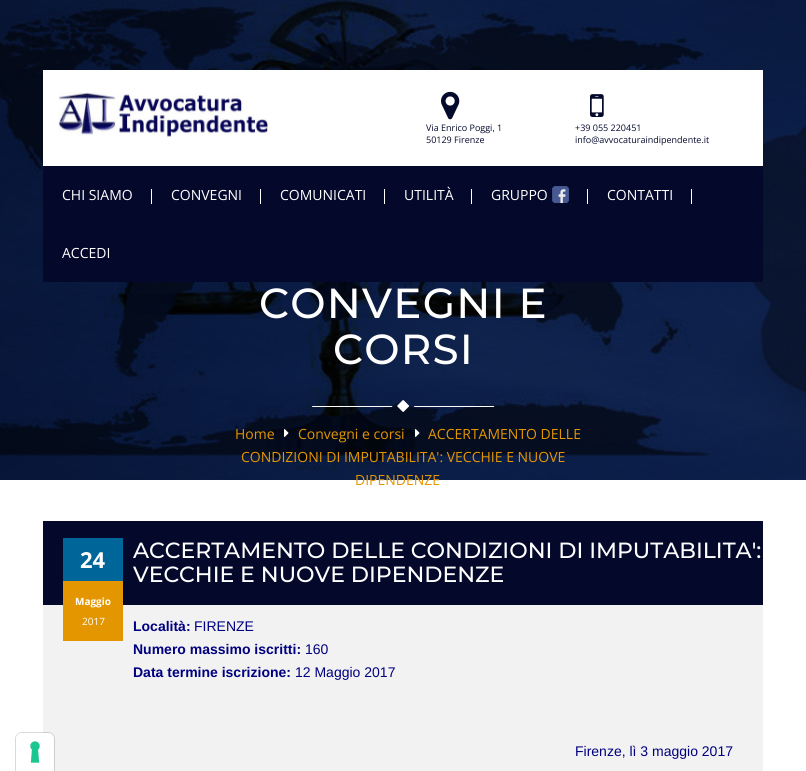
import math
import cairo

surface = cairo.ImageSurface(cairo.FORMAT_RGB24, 806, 771)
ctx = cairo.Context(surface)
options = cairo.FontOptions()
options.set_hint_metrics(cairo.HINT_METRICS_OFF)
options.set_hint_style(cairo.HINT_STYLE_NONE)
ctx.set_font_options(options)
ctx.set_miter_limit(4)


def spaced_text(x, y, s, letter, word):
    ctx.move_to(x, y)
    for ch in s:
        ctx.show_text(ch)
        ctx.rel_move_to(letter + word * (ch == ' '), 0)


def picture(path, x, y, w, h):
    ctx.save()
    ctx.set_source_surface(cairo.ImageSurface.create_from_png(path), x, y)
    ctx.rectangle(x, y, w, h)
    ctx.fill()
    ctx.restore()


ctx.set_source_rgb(1, 1, 1)
ctx.paint()
picture("img5.png", 0, 0, 806, 480)
ctx.set_source_rgb(1, 1, 1)
ctx.rectangle(43, 70, 720, 96)
ctx.fill()
picture("img1.png", 58, 92, 210, 45)
picture("img2.png", 441, 91, 19, 29)
ctx.select_font_face("Open Sans")
ctx.set_font_size(9)
ctx.set_source_rgb(0.016, 0.039, 0.173)
ctx.move_to(426, 131)
ctx.show_text("Via Enrico Poggi, 1")
ctx.move_to(426, 143)
ctx.show_text("50129 Firenze")
picture("img3.png", 590, 94, 14, 23)
ctx.move_to(575, 131)
ctx.show_text("+39 055 220451")
ctx.move_to(575, 143)
ctx.show_text("info@avvocaturaindipendente.it")
ctx.rectangle(43, 166, 720, 116)
ctx.fill()
ctx.set_font_size(14)
ctx.set_source_rgb(1, 1, 1)
ctx.move_to(62, 200)
ctx.show_text("CHI SIAMO")
ctx.rectangle(151, 189, 1, 15)
ctx.fill()
ctx.move_to(171, 200)
ctx.show_text("CONVEGNI")
ctx.rectangle(260, 189, 1, 15)
ctx.fill()
ctx.move_to(280, 200)
ctx.show_text("COMUNICATI")
ctx.rectangle(384, 189, 1, 15)
ctx.fill()
ctx.move_to(404, 200)
ctx.show_text("UTILITÀ")
ctx.rectangle(471, 189, 1, 15)
ctx.fill()
ctx.move_to(491, 200)
ctx.show_text("GRUPPO")
picture("img4.png", 552, 186, 17, 17)
ctx.rectangle(587, 189, 1, 15)
ctx.fill()
ctx.move_to(607, 200)
ctx.show_text("CONTATTI")
ctx.rectangle(691, 189, 1, 15)
ctx.fill()
ctx.move_to(62, 258)
ctx.show_text("ACCEDI")
picture("img6.png", 312, 400, 183, 12)
ctx.select_font_face("Montserrat Medium")
ctx.set_font_size(42)
spaced_text(259, 318, "CONVEGNI E", 1.25, 0)
spaced_text(333, 364, "CORSI", 1.25, 0)
ctx.select_font_face("Open Sans")
ctx.set_font_size(14)
ctx.set_source_rgb(0.894, 0.588, 0)
ctx.move_to(235, 439)
ctx.show_text("Home")
picture("img7.png", 284, 429, 5, 8)
ctx.move_to(298, 439)
ctx.show_text("Convegni e corsi")
picture("img8.png", 415, 429, 5, 8)
ctx.move_to(428, 439)
ctx.show_text("ACCERTAMENTO DELLE")
ctx.move_to(241, 462)
ctx.show_text("CONDIZIONI DI IMPUTABILITA': VECCHIE E NUOVE")
ctx.move_to(355, 485)
ctx.show_text("DIPENDENZE")
ctx.set_source_rgb(0.949, 0.949, 0.949)
ctx.rectangle(43, 605, 720, 166)
ctx.fill()
ctx.new_path()
ctx.move_to(22, 732.5)
ctx.line_to(48, 732.5)
ctx.curve_to(51.5, 732.5, 54.5, 735.5, 54.5, 739)
ctx.line_to(54.5, 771.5)
ctx.line_to(15.5, 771.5)
ctx.line_to(15.5, 739)
ctx.curve_to(15.5, 735.5, 18.5, 732.5, 22, 732.5)
ctx.close_path()
ctx.set_source_rgba(0, 0, 0, 0.15)
ctx.set_line_width(1)
ctx.stroke()
ctx.set_source_rgb(1, 1, 1)
ctx.new_path()
ctx.move_to(22, 733)
ctx.line_to(48, 733)
ctx.curve_to(51.5, 733, 54, 735.5, 54, 739)
ctx.line_to(54, 771)
ctx.line_to(16, 771)
ctx.line_to(16, 739)
ctx.curve_to(16, 735.5, 18.5, 733, 22, 733)
ctx.close_path()
ctx.fill()
picture("img9.png", 30, 741, 10, 22)
ctx.set_source_rgb(0.016, 0.039, 0.173)
ctx.rectangle(43, 521, 720, 84)
ctx.fill()
ctx.set_source_rgb(0, 0.4, 0.6)
ctx.rectangle(63, 538, 60, 43)
ctx.fill()
ctx.select_font_face("Open Sans", cairo.FONT_SLANT_NORMAL, cairo.FONT_WEIGHT_BOLD)
ctx.set_font_size(22)
ctx.set_source_rgb(1, 1, 1)
ctx.move_to(80, 568)
ctx.show_text("24")
ctx.set_source_rgb(0.894, 0.588, 0)
ctx.rectangle(63, 581, 60, 60)
ctx.fill()
ctx.set_font_size(10)
ctx.set_source_rgb(1, 1, 1)
ctx.move_to(75, 605)
ctx.show_text("Maggio")
ctx.select_font_face("Open Sans")
ctx.move_to(82, 625)
ctx.show_text("2017")
ctx.select_font_face("Montserrat Medium")
ctx.set_font_size(22)
ctx.move_to(133, 558)
ctx.show_text("ACCERTAMENTO DELLE CONDIZIONI DI IMPUTABILITA':")
ctx.move_to(133, 582)
ctx.show_text("VECCHIE E NUOVE DIPENDENZE")
ctx.select_font_face("Liberation Sans", cairo.FONT_SLANT_NORMAL, cairo.FONT_WEIGHT_BOLD)
ctx.set_font_size(14)
ctx.set_source_rgb(0, 0, 0.502)
ctx.move_to(133, 631)
ctx.show_text("Località:")
ctx.select_font_face("Liberation Sans")
ctx.move_to(194, 631)
ctx.show_text("FIRENZE")
ctx.select_font_face("Liberation Sans", cairo.FONT_SLANT_NORMAL, cairo.FONT_WEIGHT_BOLD)
ctx.move_to(133, 654)
ctx.show_text("Numero massimo iscritti:")
ctx.select_font_face("Liberation Sans")
ctx.move_to(305, 654)
ctx.show_text("160")
ctx.select_font_face("Liberation Sans", cairo.FONT_SLANT_NORMAL, cairo.FONT_WEIGHT_BOLD)
ctx.move_to(133, 677)
ctx.show_text("Data termine iscrizione:")
ctx.select_font_face("Liberation Sans")
ctx.move_to(295, 677)
ctx.show_text("12 Maggio 2017")
ctx.move_to(575, 756)
ctx.show_text("Firenze, lì 3 maggio 2017")
surface.write_to_png("page.png")
